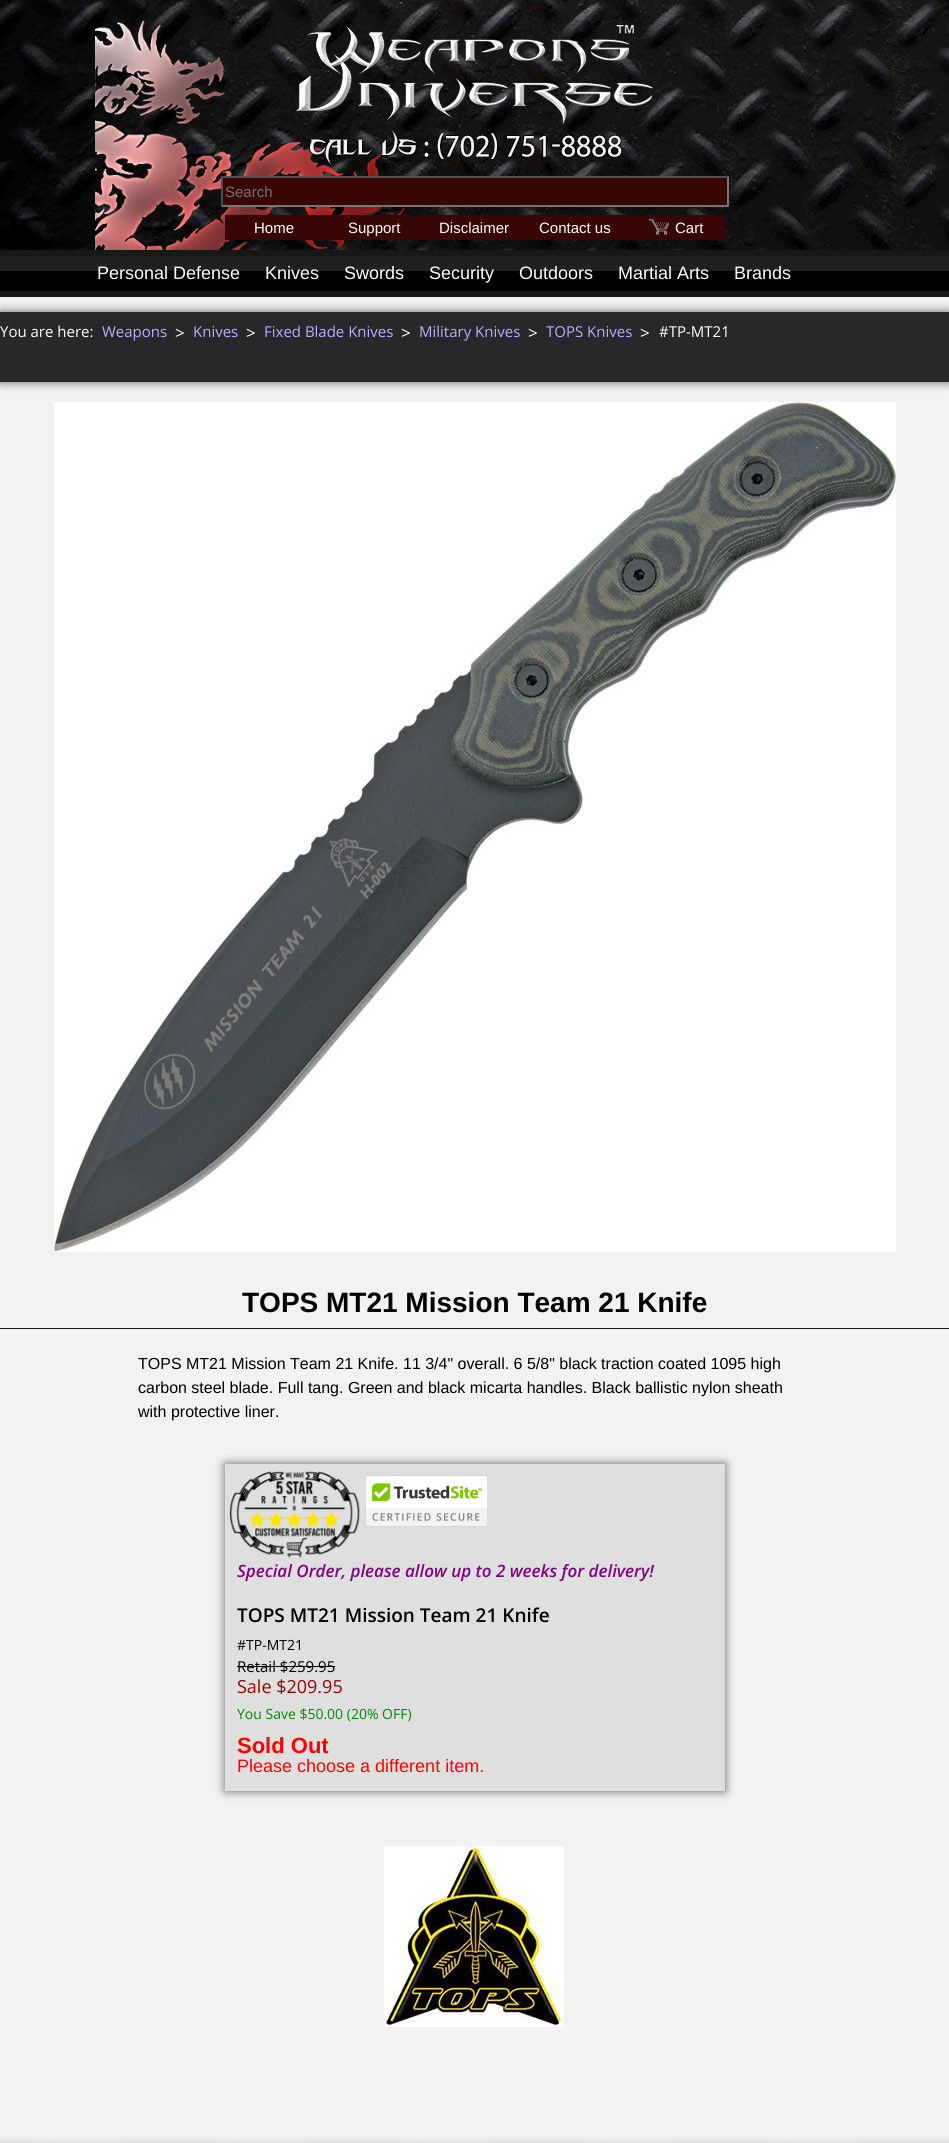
import math
import cairo

surface = cairo.ImageSurface(cairo.FORMAT_RGB24, 949, 2143)
ctx = cairo.Context(surface)
options = cairo.FontOptions()
options.set_hint_metrics(cairo.HINT_METRICS_OFF)
options.set_hint_style(cairo.HINT_STYLE_NONE)
ctx.set_font_options(options)
ctx.set_miter_limit(4)


def round_rect(x, y, w, h, r):
    ctx.new_sub_path()
    for i, (u, v) in enumerate([(x + w - r, y + h - r), (x + r, y + h - r), (x + r, y + r), (x + w - r, y + r)]):
        ctx.arc(u, v, r, i * math.pi / 2, (i + 1) * math.pi / 2)
    ctx.close_path()


def shadow(x, y, w, h, r, blur, alpha):
    ctx.push_group_with_content(cairo.CONTENT_ALPHA)
    ctx.set_operator(cairo.OPERATOR_SOURCE)
    for i in range(15, -16, -2):
        e = blur * i / 6
        if min(w, h) + 2 * e > 0:
            ctx.set_source_rgba(0, 0, 0, alpha * math.erfc((i - 1) / 8.5) / 2)
            round_rect(x - e, y - e, w + 2 * e, h + 2 * e, max(0, min(r + e + blur * .6, min(w, h) / 2 + e)))
            ctx.fill()
    ctx.mask(ctx.pop_group())


def picture(path, x, y, w, h):
    ctx.save()
    ctx.set_source_surface(cairo.ImageSurface.create_from_png(path), x, y)
    ctx.rectangle(x, y, w, h)
    ctx.fill()
    ctx.restore()


ctx.set_source_rgb(0.949, 0.949, 0.941)
ctx.paint()
picture("img1.png", 0, 0, 949, 250)
picture("img2.png", 95, 20, 310, 230)
picture("img3.png", 295, 25, 358, 139)
ctx.set_source_rgb(0.224, 0.027, 0.027)
ctx.rectangle(221, 176, 508, 31)
ctx.fill()
ctx.set_source_rgb(0.31, 0.31, 0.31)
ctx.new_path()
ctx.move_to(221, 176)
ctx.line_to(729, 176)
ctx.line_to(727, 178)
ctx.line_to(223, 178)
ctx.close_path()
ctx.fill()
ctx.set_source_rgb(0.463, 0.463, 0.463)
ctx.new_path()
ctx.move_to(729, 176)
ctx.line_to(729, 207)
ctx.line_to(727, 205)
ctx.line_to(727, 178)
ctx.close_path()
ctx.fill()
ctx.new_path()
ctx.move_to(729, 207)
ctx.line_to(221, 207)
ctx.line_to(223, 205)
ctx.line_to(727, 205)
ctx.close_path()
ctx.fill()
ctx.set_source_rgb(0.31, 0.31, 0.31)
ctx.new_path()
ctx.move_to(221, 207)
ctx.line_to(221, 176)
ctx.line_to(223, 178)
ctx.line_to(223, 205)
ctx.close_path()
ctx.fill()
ctx.select_font_face("Liberation Sans")
ctx.set_font_size(15)
ctx.set_source_rgb(0.459, 0.459, 0.459)
ctx.move_to(225, 197)
ctx.show_text("Search")
ctx.set_source_rgb(0.224, 0.027, 0.027)
ctx.rectangle(225, 215, 500, 25)
ctx.fill()
ctx.set_source_rgb(1, 1, 1)
ctx.move_to(254, 233)
ctx.show_text("Home")
ctx.move_to(348, 233)
ctx.show_text("Support")
ctx.move_to(439, 233)
ctx.show_text("Disclaimer")
ctx.move_to(539, 233)
ctx.show_text("Contact us")
picture("img4.png", 649, 219, 20, 16)
ctx.move_to(675, 233)
ctx.show_text("Cart")
ctx.set_source_rgb(0.09, 0.098, 0.09)
ctx.rectangle(0, 250, 949, 47)
ctx.fill()
picture("img5.png", 0, 256, 949, 35)
ctx.set_font_size(18)
ctx.set_source_rgb(1, 1, 1)
ctx.move_to(97, 279)
ctx.show_text("Personal Defense")
ctx.move_to(265, 279)
ctx.show_text("Knives")
ctx.move_to(344, 279)
ctx.show_text("Swords")
ctx.move_to(429, 279)
ctx.show_text("Security")
ctx.move_to(519, 279)
ctx.show_text("Outdoors")
ctx.move_to(618, 279)
ctx.show_text("Martial Arts")
ctx.move_to(734, 279)
ctx.show_text("Brands")
ctx.set_source_rgb(0, 0, 0)
shadow(0, 312, 949, 70, 0, 5, 0.6)
ctx.set_source_rgb(0.161, 0.153, 0.161)
ctx.rectangle(0, 312, 949, 70)
ctx.fill()
ctx.select_font_face("Open Sans")
ctx.set_font_size(15)
ctx.set_source_rgb(1, 1, 1)
ctx.move_to(0, 337)
ctx.show_text("You are here:")
ctx.set_source_rgb(0.698, 0.698, 1)
ctx.move_to(102, 337)
ctx.show_text("Weapons")
ctx.set_font_size(17)
ctx.set_source_rgb(1, 1, 1)
ctx.move_to(175, 339)
ctx.show_text(">")
ctx.set_font_size(15)
ctx.set_source_rgb(0.698, 0.698, 1)
ctx.move_to(193, 337)
ctx.show_text("Knives")
ctx.set_font_size(17)
ctx.set_source_rgb(1, 1, 1)
ctx.move_to(246, 339)
ctx.show_text(">")
ctx.set_font_size(15)
ctx.set_source_rgb(0.698, 0.698, 1)
ctx.move_to(264, 337)
ctx.show_text("Fixed Blade Knives")
ctx.set_font_size(17)
ctx.set_source_rgb(1, 1, 1)
ctx.move_to(401, 339)
ctx.show_text(">")
ctx.set_font_size(15)
ctx.set_source_rgb(0.698, 0.698, 1)
ctx.move_to(419, 337)
ctx.show_text("Military Knives")
ctx.set_font_size(17)
ctx.set_source_rgb(1, 1, 1)
ctx.move_to(528, 339)
ctx.show_text(">")
ctx.set_font_size(15)
ctx.set_source_rgb(0.698, 0.698, 1)
ctx.move_to(546, 337)
ctx.show_text("TOPS Knives")
ctx.set_font_size(17)
ctx.set_source_rgb(1, 1, 1)
ctx.move_to(640, 339)
ctx.show_text(">")
ctx.set_font_size(15)
ctx.move_to(659, 337)
ctx.show_text("#TP-MT21")
picture("img6.png", 54, 402, 842, 850)
ctx.select_font_face("Liberation Sans", cairo.FONT_SLANT_NORMAL, cairo.FONT_WEIGHT_BOLD)
ctx.set_font_size(28)
ctx.set_source_rgb(0, 0, 0)
ctx.move_to(242, 1312)
ctx.show_text("TOPS MT21 Mission Team 21 Knife")
ctx.set_source_rgb(0.102, 0.102, 0.102)
ctx.rectangle(0, 1328, 949, 1)
ctx.fill()
ctx.select_font_face("Liberation Sans")
ctx.set_font_size(16)
ctx.set_source_rgb(0, 0, 0)
ctx.move_to(138, 1369)
ctx.show_text("TOPS MT21 Mission Team 21 Knife. 11 3/4\" overall. 6 5/8\" black traction coated 1095 high")
ctx.move_to(138, 1393)
ctx.show_text("carbon steel blade. Full tang. Green and black micarta handles. Black ballistic nylon sheath")
ctx.move_to(138, 1417)
ctx.show_text("with protective liner.")
ctx.set_source_rgb(0, 0, 0)
shadow(225, 1464, 500, 327, 0, 5, 0.6)
ctx.set_source_rgb(0.875, 0.875, 0.875)
ctx.rectangle(225, 1464, 500, 327)
ctx.fill()
picture("img7.png", 229, 1471, 131, 87)
picture("img8.png", 365, 1475, 123, 52)
ctx.select_font_face("Open Sans SemiBold", cairo.FONT_SLANT_ITALIC)
ctx.set_font_size(17)
ctx.set_source_rgb(0.502, 0, 0.502)
ctx.move_to(237, 1577)
ctx.show_text("Special Order, please allow up to 2 weeks for delivery!")
ctx.select_font_face("Open Sans SemiBold")
ctx.set_font_size(19)
ctx.set_source_rgb(0, 0, 0)
ctx.move_to(237, 1622)
ctx.show_text("TOPS MT21 Mission Team 21 Knife")
ctx.select_font_face("Open Sans")
ctx.set_font_size(14)
ctx.move_to(237, 1650)
ctx.show_text("#TP-MT21")
ctx.set_font_size(15)
ctx.move_to(237, 1672)
ctx.show_text("Retail $259.95")
ctx.rectangle(237, 1666, 98, 1)
ctx.fill()
ctx.set_font_size(18)
ctx.set_source_rgb(0.6, 0, 0)
ctx.move_to(237, 1693)
ctx.show_text("Sale $209.95")
ctx.set_font_size(14)
ctx.set_source_rgb(0, 0.533, 0)
ctx.move_to(237, 1719)
ctx.show_text("You Save $50.00 (20% OFF)")
ctx.select_font_face("Liberation Sans", cairo.FONT_SLANT_NORMAL, cairo.FONT_WEIGHT_BOLD)
ctx.set_font_size(22)
ctx.set_source_rgb(1, 0, 0)
ctx.move_to(237, 1753)
ctx.show_text("Sold Out")
ctx.select_font_face("Liberation Sans")
ctx.set_font_size(18)
ctx.move_to(237, 1772)
ctx.show_text("Please choose a different item.")
picture("img9.png", 384, 1846, 180, 181)
picture("img10.png", 0, 2137, 949, 6)
surface.write_to_png("page.png")
